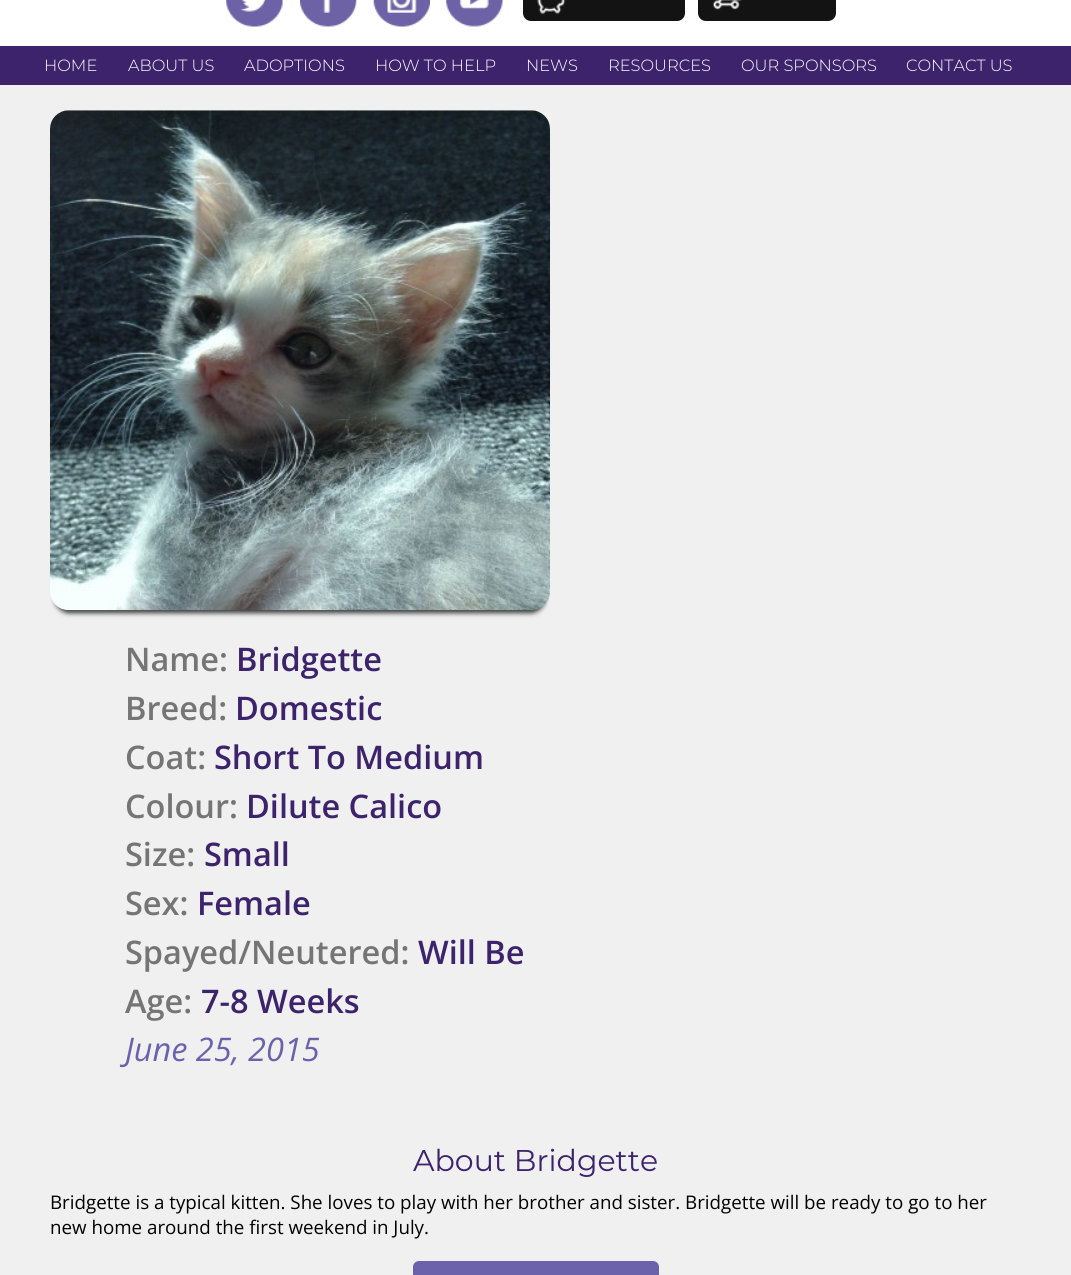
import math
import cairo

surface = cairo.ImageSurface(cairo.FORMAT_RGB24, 1071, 1275)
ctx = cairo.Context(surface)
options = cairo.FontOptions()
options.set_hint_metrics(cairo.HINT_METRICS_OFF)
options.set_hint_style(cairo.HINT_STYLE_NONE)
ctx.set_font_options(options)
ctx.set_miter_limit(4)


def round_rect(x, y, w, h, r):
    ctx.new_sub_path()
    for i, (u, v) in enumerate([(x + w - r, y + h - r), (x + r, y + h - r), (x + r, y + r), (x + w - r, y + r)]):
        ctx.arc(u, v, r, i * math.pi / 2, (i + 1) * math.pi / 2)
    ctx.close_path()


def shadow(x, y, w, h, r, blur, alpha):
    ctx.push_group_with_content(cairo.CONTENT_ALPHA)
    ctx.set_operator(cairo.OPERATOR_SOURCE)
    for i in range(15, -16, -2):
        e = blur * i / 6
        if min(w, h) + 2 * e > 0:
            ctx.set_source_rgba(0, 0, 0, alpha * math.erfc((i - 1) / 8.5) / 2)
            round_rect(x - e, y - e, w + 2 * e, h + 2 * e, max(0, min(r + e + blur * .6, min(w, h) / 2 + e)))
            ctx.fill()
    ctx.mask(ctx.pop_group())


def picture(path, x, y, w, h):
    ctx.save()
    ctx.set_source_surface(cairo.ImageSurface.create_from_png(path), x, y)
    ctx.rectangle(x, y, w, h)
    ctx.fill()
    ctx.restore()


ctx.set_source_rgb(1, 1, 1)
ctx.paint()
picture("img1.png", 226, 0, 57, 27)
picture("img2.png", 300, 0, 57, 27)
picture("img3.png", 373, 0, 57, 27)
picture("img4.png", 446, 0, 57, 27)
ctx.set_source_rgb(0.078, 0.078, 0.078)
round_rect(523, -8, 162, 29, 8)
ctx.fill()
picture("img5.png", 537, 0, 29, 15)
round_rect(698, -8, 138, 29, 8)
ctx.fill()
picture("img6.png", 712, 0, 30, 10)
ctx.set_source_rgb(0.239, 0.137, 0.424)
ctx.rectangle(0, 46, 1071, 39)
ctx.fill()
ctx.select_font_face("Montserrat Light")
ctx.set_font_size(16.25)
ctx.set_source_rgb(1, 1, 1)
ctx.move_to(44, 71)
ctx.show_text("HOME")
ctx.move_to(128, 71)
ctx.show_text("ABOUT US")
ctx.move_to(244, 71)
ctx.show_text("ADOPTIONS")
ctx.move_to(375, 71)
ctx.show_text("HOW TO HELP")
ctx.move_to(526, 71)
ctx.show_text("NEWS")
ctx.move_to(608, 71)
ctx.show_text("RESOURCES")
ctx.move_to(741, 71)
ctx.show_text("OUR SPONSORS")
ctx.move_to(906, 71)
ctx.show_text("CONTACT US")
ctx.set_source_rgb(0.941, 0.941, 0.941)
ctx.rectangle(0, 85, 1071, 1190)
ctx.fill()
ctx.set_source_rgb(0.2, 0.2, 0.2)
shadow(55, 123, 490, 490, 14, 2.5, 1)
picture("img7.png", 50, 110, 500, 501)
ctx.select_font_face("Open Sans SemiBold")
ctx.set_font_size(32.5)
ctx.set_source_rgb(0.459, 0.459, 0.459)
ctx.move_to(125, 671)
ctx.show_text("Name:")
ctx.set_source_rgb(0.239, 0.137, 0.424)
ctx.move_to(236, 671)
ctx.show_text("Bridgette")
ctx.set_source_rgb(0.459, 0.459, 0.459)
ctx.move_to(125, 720)
ctx.show_text("Breed:")
ctx.set_source_rgb(0.239, 0.137, 0.424)
ctx.move_to(235, 720)
ctx.show_text("Domestic")
ctx.set_source_rgb(0.459, 0.459, 0.459)
ctx.move_to(125, 769)
ctx.show_text("Coat:")
ctx.set_source_rgb(0.239, 0.137, 0.424)
ctx.move_to(214, 769)
ctx.show_text("Short To Medium")
ctx.set_source_rgb(0.459, 0.459, 0.459)
ctx.move_to(125, 818)
ctx.show_text("Colour:")
ctx.set_source_rgb(0.239, 0.137, 0.424)
ctx.move_to(246, 818)
ctx.show_text("Dilute Calico")
ctx.set_source_rgb(0.459, 0.459, 0.459)
ctx.move_to(125, 866)
ctx.show_text("Size:")
ctx.set_source_rgb(0.239, 0.137, 0.424)
ctx.move_to(204, 866)
ctx.show_text("Small")
ctx.set_source_rgb(0.459, 0.459, 0.459)
ctx.move_to(125, 915)
ctx.show_text("Sex:")
ctx.set_source_rgb(0.239, 0.137, 0.424)
ctx.move_to(197, 915)
ctx.show_text("Female")
ctx.set_source_rgb(0.459, 0.459, 0.459)
ctx.move_to(125, 964)
ctx.show_text("Spayed/Neutered:")
ctx.set_source_rgb(0.239, 0.137, 0.424)
ctx.move_to(418, 964)
ctx.show_text("Will Be")
ctx.set_source_rgb(0.459, 0.459, 0.459)
ctx.move_to(125, 1013)
ctx.show_text("Age:")
ctx.set_source_rgb(0.239, 0.137, 0.424)
ctx.move_to(201, 1013)
ctx.show_text("7-8 Weeks")
ctx.select_font_face("Open Sans", cairo.FONT_SLANT_ITALIC)
ctx.set_source_rgb(0.424, 0.384, 0.671)
ctx.move_to(125, 1061)
ctx.show_text("June 25, 2015")
ctx.select_font_face("Montserrat")
ctx.set_font_size(30)
ctx.set_source_rgb(0.239, 0.137, 0.424)
ctx.move_to(413, 1171)
ctx.show_text("About Bridgette")
ctx.select_font_face("Open Sans")
ctx.set_font_size(18.75)
ctx.set_source_rgb(0, 0, 0)
ctx.move_to(50, 1209)
ctx.show_text("Bridgette is a typical kitten. She loves to play with her brother and sister. Bridgette will be ready to go to her")
ctx.move_to(50, 1234)
ctx.show_text("new home around the first weekend in July.")
ctx.set_source_rgb(0.424, 0.384, 0.671)
round_rect(413, 1261, 246, 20, 6)
ctx.fill()
surface.write_to_png("page.png")
